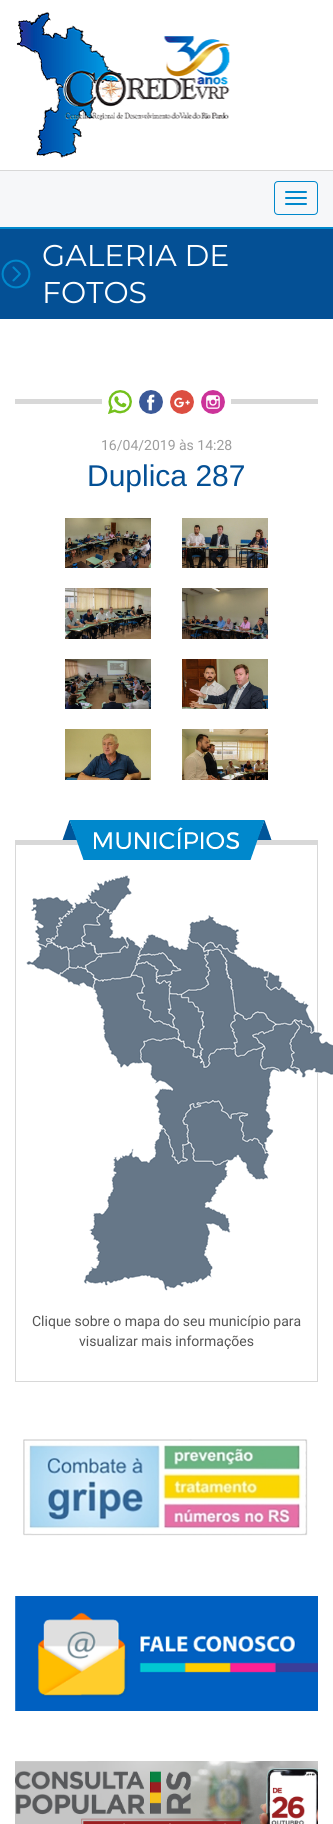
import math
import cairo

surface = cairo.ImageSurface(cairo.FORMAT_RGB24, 333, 1824)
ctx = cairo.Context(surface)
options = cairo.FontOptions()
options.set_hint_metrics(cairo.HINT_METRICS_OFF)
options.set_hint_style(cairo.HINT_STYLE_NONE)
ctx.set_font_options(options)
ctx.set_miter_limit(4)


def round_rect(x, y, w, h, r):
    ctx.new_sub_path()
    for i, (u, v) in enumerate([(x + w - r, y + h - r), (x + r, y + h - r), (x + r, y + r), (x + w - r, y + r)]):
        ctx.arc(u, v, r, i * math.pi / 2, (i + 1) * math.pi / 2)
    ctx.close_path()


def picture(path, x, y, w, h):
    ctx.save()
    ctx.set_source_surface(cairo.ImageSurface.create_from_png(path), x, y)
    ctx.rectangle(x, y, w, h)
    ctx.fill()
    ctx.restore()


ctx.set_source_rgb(1, 1, 1)
ctx.paint()
picture("img1.png", 16, 12, 214, 146)
picture("img2.png", 0, 171, 333, 58)
ctx.set_source_rgb(0.847, 0.847, 0.847)
ctx.rectangle(0, 170, 333, 1)
ctx.fill()
round_rect(274.5, 181.5, 43, 33, 3.5)
ctx.set_source_rgb(0, 0.533, 0.8)
ctx.set_line_width(1)
ctx.stroke()
round_rect(285, 191, 22, 2, 1)
ctx.fill()
round_rect(285, 197, 22, 2, 1)
ctx.fill()
round_rect(285, 203, 22, 2, 1)
ctx.fill()
ctx.set_source_rgb(0.016, 0.314, 0.584)
ctx.rectangle(0, 229, 333, 90)
ctx.fill()
picture("img3.png", 1, 259, 30, 30)
ctx.select_font_face("Montserrat")
ctx.set_font_size(30)
ctx.set_source_rgb(1, 1, 1)
ctx.move_to(42, 266)
ctx.show_text("GALERIA DE")
ctx.move_to(42, 303)
ctx.show_text("FOTOS")
ctx.set_source_rgb(0.847, 0.847, 0.847)
ctx.rectangle(15, 399, 303, 5)
ctx.fill()
ctx.set_source_rgb(1, 1, 1)
ctx.rectangle(102, 399, 129, 5)
ctx.fill()
picture("img4.png", 108, 390, 24, 24)
picture("img5.png", 139, 390, 24, 24)
picture("img6.png", 170, 390, 24, 24)
picture("img7.png", 201, 390, 24, 24)
ctx.select_font_face("Roboto")
ctx.set_font_size(14)
ctx.set_source_rgb(0.616, 0.616, 0.616)
ctx.move_to(101, 450)
ctx.show_text("16/04/2019 às 14:28")
ctx.select_font_face("Liberation Sans")
ctx.set_font_size(30)
ctx.set_source_rgb(0.016, 0.314, 0.584)
ctx.move_to(87, 486)
ctx.show_text("Duplica 287")
picture("img8.png", 65, 518, 86, 50)
picture("img9.png", 182, 518, 86, 50)
picture("img10.png", 65, 588, 86, 51)
picture("img11.png", 182, 588, 86, 51)
picture("img12.png", 65, 659, 86, 50)
picture("img13.png", 182, 659, 86, 50)
picture("img14.png", 65, 729, 86, 51)
picture("img15.png", 182, 729, 86, 51)
ctx.set_source_rgb(0.847, 0.847, 0.847)
ctx.rectangle(15, 840, 303, 5)
ctx.fill()
picture("img16.png", 62, 820, 210, 40)
ctx.rectangle(317, 840, 1, 542)
ctx.fill()
ctx.rectangle(15, 1381, 303, 1)
ctx.fill()
ctx.rectangle(15, 840, 1, 542)
ctx.fill()
picture("img17.png", 26, 875, 307, 416)
ctx.select_font_face("Roboto")
ctx.set_font_size(14)
ctx.set_source_rgb(0.333, 0.333, 0.333)
ctx.move_to(32, 1326)
ctx.show_text("Clique sobre o mapa do seu município para")
ctx.move_to(79, 1346)
ctx.show_text("visualizar mais informações")
picture("img18.png", 23, 1439, 285, 97)
picture("img19.png", 15, 1596, 303, 115)
picture("img20.png", 15, 1761, 303, 63)
surface.write_to_png("page.png")
